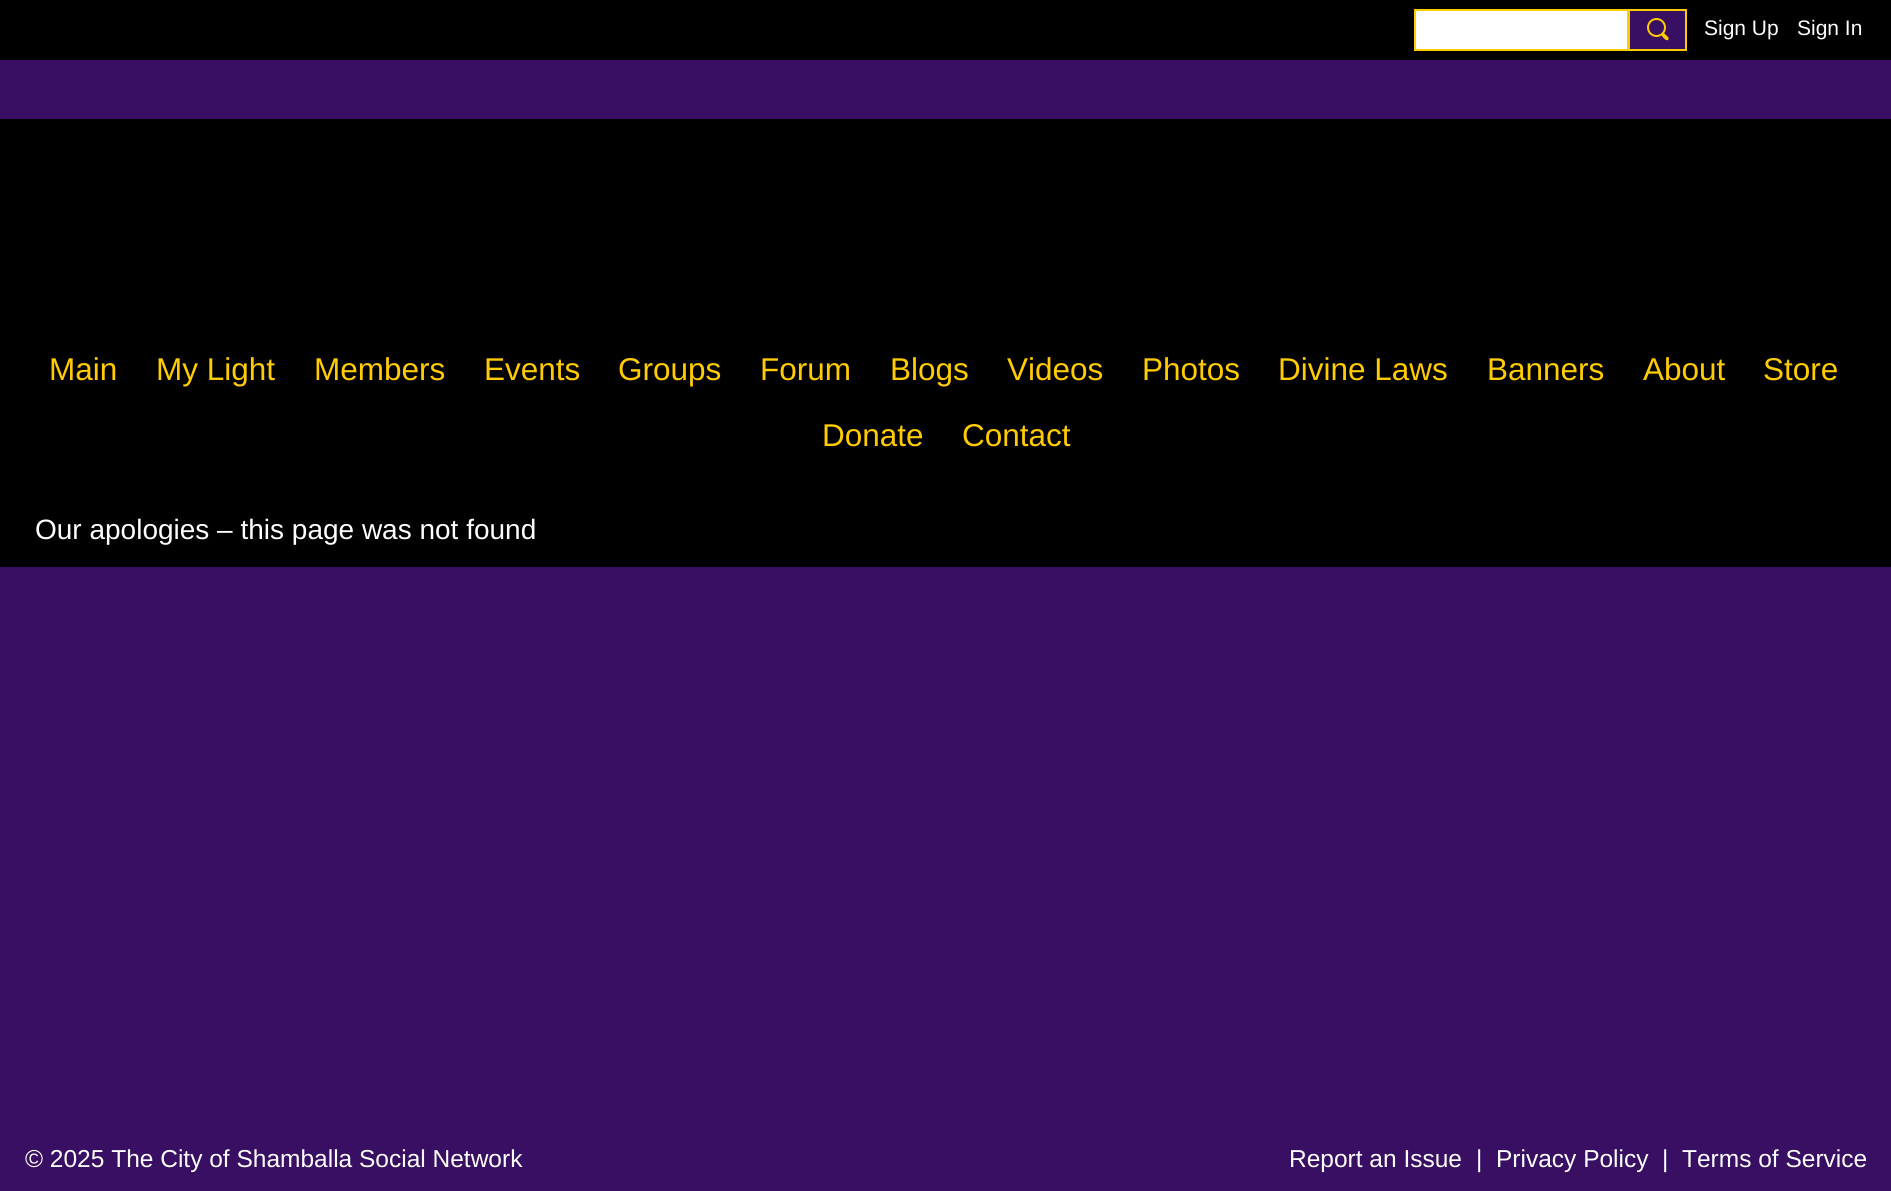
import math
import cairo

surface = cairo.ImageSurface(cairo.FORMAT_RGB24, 1891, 1191)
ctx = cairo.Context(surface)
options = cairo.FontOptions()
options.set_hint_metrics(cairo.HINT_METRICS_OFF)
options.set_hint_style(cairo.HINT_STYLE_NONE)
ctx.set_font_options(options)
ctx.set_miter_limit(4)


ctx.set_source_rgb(0.22, 0.059, 0.388)
ctx.paint()
ctx.set_source_rgb(0, 0, 0)
ctx.rectangle(0, 0, 1891, 60)
ctx.fill()
ctx.set_source_rgb(1, 1, 1)
ctx.rectangle(1415, 10, 213, 40)
ctx.fill_preserve()
ctx.set_source_rgb(1, 0.8, 0)
ctx.stroke()
ctx.set_source_rgb(0.22, 0.059, 0.388)
ctx.rectangle(1629, 10, 57, 40)
ctx.fill_preserve()
ctx.set_source_rgb(1, 0.8, 0)
ctx.stroke()
ctx.arc(1656.5, 27.5, 8.5, 0, 2 * math.pi)
ctx.stroke()
ctx.new_path()
ctx.move_to(1664.5, 33.5)
ctx.line_to(1668.5, 37.5)
ctx.curve_to(1668.5, 38, 1668.5, 39, 1668.5, 39.5)
ctx.curve_to(1666.5, 42, 1663, 37.5, 1662, 36)
ctx.curve_to(1660.5, 34.5, 1663, 32, 1664.5, 33.5)
ctx.close_path()
ctx.fill()
ctx.select_font_face("Liberation Sans")
ctx.set_font_size(21)
ctx.set_source_rgb(1, 1, 1)
ctx.move_to(1704, 35)
ctx.show_text("Sign Up")
ctx.move_to(1797, 35)
ctx.show_text("Sign In")
ctx.set_source_rgb(0, 0, 0)
ctx.rectangle(0, 119, 1891, 448)
ctx.fill()
ctx.set_font_size(31.5)
ctx.set_source_rgb(1, 0.8, 0)
ctx.move_to(49, 380)
ctx.show_text("Main")
ctx.move_to(156, 380)
ctx.show_text("My Light")
ctx.move_to(314, 380)
ctx.show_text("Members")
ctx.move_to(484, 380)
ctx.show_text("Events")
ctx.move_to(618, 380)
ctx.show_text("Groups")
ctx.move_to(760, 380)
ctx.show_text("Forum")
ctx.move_to(890, 380)
ctx.show_text("Blogs")
ctx.move_to(1007, 380)
ctx.show_text("Videos")
ctx.move_to(1142, 380)
ctx.show_text("Photos")
ctx.move_to(1278, 380)
ctx.show_text("Divine Laws")
ctx.move_to(1487, 380)
ctx.show_text("Banners")
ctx.move_to(1643, 380)
ctx.show_text("About")
ctx.move_to(1763, 380)
ctx.show_text("Store")
ctx.move_to(822, 446)
ctx.show_text("Donate")
ctx.move_to(962, 446)
ctx.show_text("Contact")
ctx.set_font_size(28)
ctx.set_source_rgb(1, 1, 1)
ctx.move_to(35, 539)
ctx.show_text("Our apologies – this page was not found")
ctx.set_font_size(24.5)
ctx.move_to(25, 1167)
ctx.show_text("© 2025 The City of Shamballa Social Network")
ctx.move_to(1289, 1167)
ctx.show_text("Report an Issue")
ctx.move_to(1476, 1167)
ctx.show_text("|")
ctx.move_to(1496, 1167)
ctx.show_text("Privacy Policy")
ctx.move_to(1662, 1167)
ctx.show_text("|")
ctx.move_to(1682, 1167)
ctx.show_text("Terms of Service")
surface.write_to_png("page.png")
